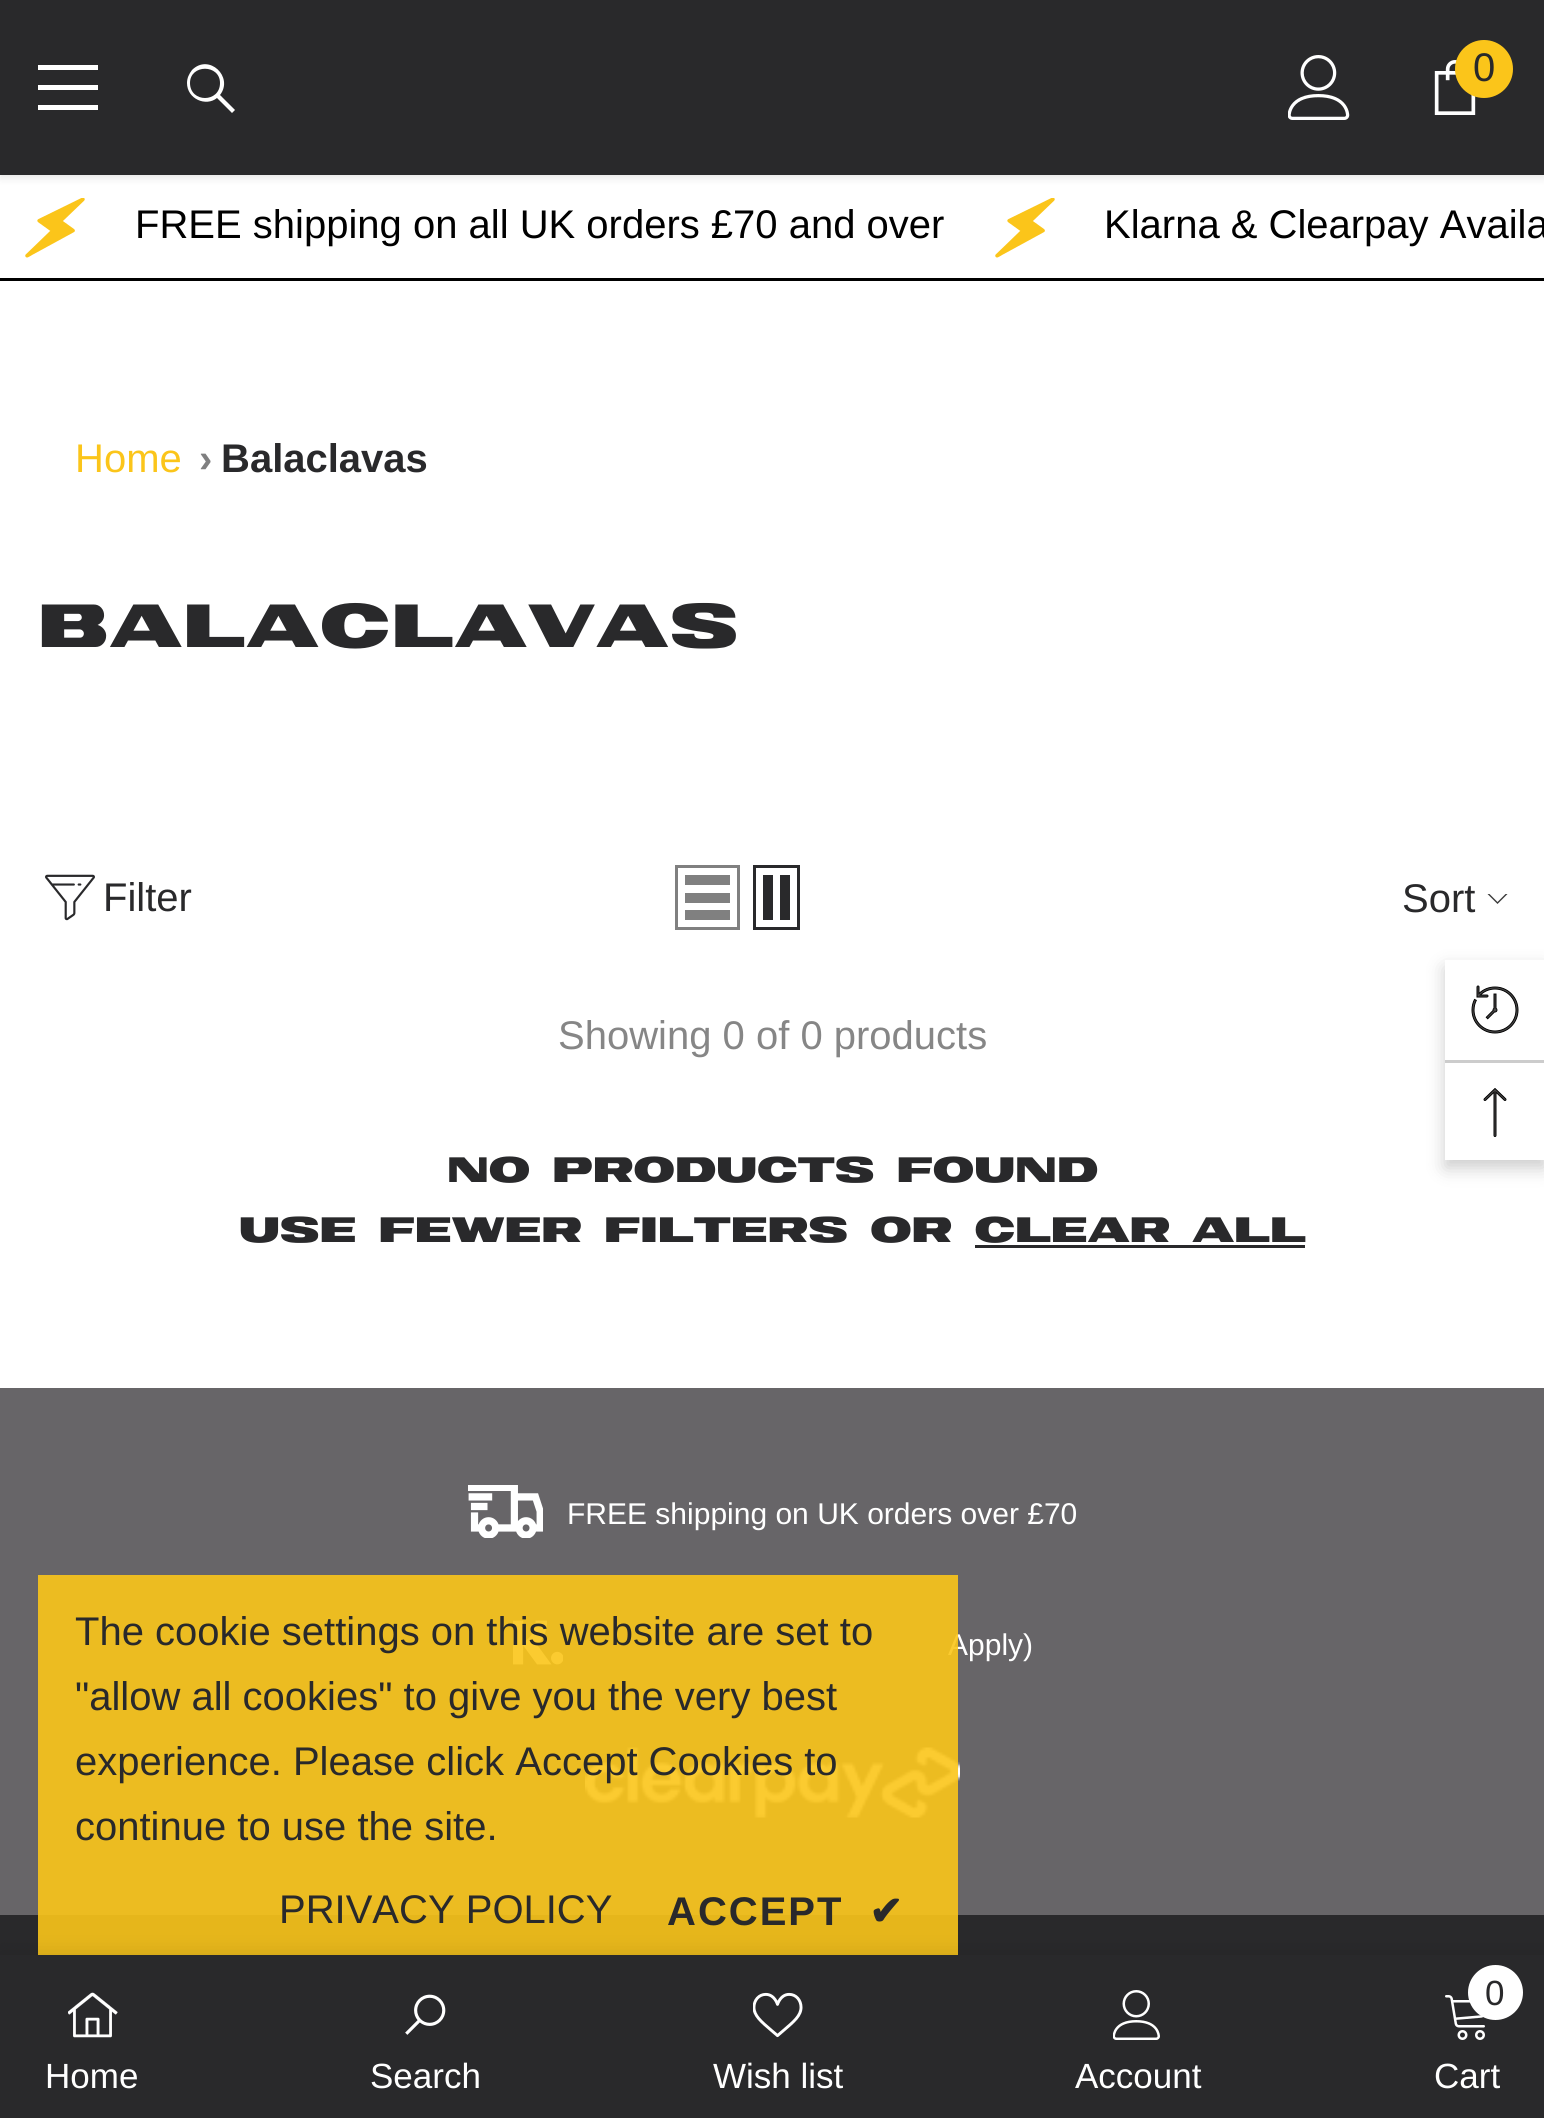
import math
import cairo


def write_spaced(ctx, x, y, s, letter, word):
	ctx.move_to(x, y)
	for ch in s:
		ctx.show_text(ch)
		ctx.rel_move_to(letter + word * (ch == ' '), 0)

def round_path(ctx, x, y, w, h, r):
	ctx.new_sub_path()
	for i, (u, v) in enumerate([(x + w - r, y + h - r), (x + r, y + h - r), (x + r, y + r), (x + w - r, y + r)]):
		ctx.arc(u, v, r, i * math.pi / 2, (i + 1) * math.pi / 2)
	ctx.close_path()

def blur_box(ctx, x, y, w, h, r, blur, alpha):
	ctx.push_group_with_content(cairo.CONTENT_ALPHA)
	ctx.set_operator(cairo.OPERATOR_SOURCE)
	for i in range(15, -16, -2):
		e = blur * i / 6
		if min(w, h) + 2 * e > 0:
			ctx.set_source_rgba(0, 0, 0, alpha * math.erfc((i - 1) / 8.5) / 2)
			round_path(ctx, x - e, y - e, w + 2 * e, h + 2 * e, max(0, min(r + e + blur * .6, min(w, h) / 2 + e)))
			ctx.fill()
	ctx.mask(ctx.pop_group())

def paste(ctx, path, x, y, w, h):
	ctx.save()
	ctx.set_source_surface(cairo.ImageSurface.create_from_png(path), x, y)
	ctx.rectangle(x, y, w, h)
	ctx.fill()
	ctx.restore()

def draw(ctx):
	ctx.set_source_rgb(1, 1, 1)
	ctx.paint()
	ctx.set_source_rgb(0, 0, 0)
	blur_box(ctx, 0, 3, 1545, 175, 0, 4, 0.1)
	ctx.set_source_rgb(0.161, 0.161, 0.169)
	ctx.rectangle(0, 0, 1544, 175)
	ctx.fill()
	ctx.set_source_rgb(1, 1, 1)
	ctx.rectangle(38, 85, 60, 5)
	ctx.rectangle(38, 65, 60, 5)
	ctx.rectangle(38, 105, 60, 5)
	ctx.fill()
	ctx.new_path()
	ctx.move_to(187, 83)
	ctx.curve_to(187, 99, 206, 107, 217, 98)
	ctx.line_to(232, 113)
	ctx.line_to(235, 110)
	ctx.line_to(220, 95)
	ctx.curve_to(234, 77, 209, 53, 192, 70)
	ctx.curve_to(189, 74, 187, 78, 187, 83)
	ctx.close_path()
	ctx.move_to(190, 83)
	ctx.curve_to(190, 64, 220, 64, 220, 83)
	ctx.curve_to(220, 103, 190, 103, 190, 83)
	ctx.close_path()
	ctx.fill()
	paste(ctx, 'media/1.png', 1288, 55, 62, 65)
	paste(ctx, 'media/2.png', 1434, 60, 42, 55)
	ctx.set_source_rgb(0.984, 0.773, 0.102)
	ctx.arc(1484, 69, 29, 0, 2 * math.pi)
	ctx.fill()
	ctx.select_font_face('Liberation Sans')
	ctx.set_font_size(40)
	ctx.set_source_rgb(0.161, 0.161, 0.169)
	ctx.move_to(1473, 81)
	ctx.show_text('0')
	ctx.set_source_rgb(0, 0, 0)
	ctx.rectangle(0, 278, 1544, 3)
	ctx.fill()
	paste(ctx, 'media/3.png', 25, 198, 60, 60)
	ctx.move_to(135, 238)
	ctx.show_text('FREE shipping on all UK orders £70 and over')
	paste(ctx, 'media/3.png', 995, 198, 60, 60)
	ctx.move_to(1104, 238)
	ctx.show_text('Klarna & Clearpay Availa')
	ctx.set_source_rgb(0.984, 0.773, 0.102)
	ctx.move_to(75, 472)
	ctx.show_text('Home')
	ctx.select_font_face('Liberation Sans', cairo.FONT_SLANT_NORMAL, cairo.FONT_WEIGHT_BOLD)
	ctx.set_source_rgb(0.498, 0.498, 0.502)
	ctx.move_to(199, 472)
	ctx.show_text('›')
	ctx.set_source_rgb(0.161, 0.161, 0.169)
	ctx.move_to(221, 472)
	ctx.show_text('Balaclavas')
	ctx.select_font_face('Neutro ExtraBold')
	ctx.set_font_size(77.5)
	write_spaced(ctx, 38, 647, 'BALACLAVAS', 1.5, 0)
	paste(ctx, 'media/4.png', 45, 874, 50, 47)
	ctx.select_font_face('Liberation Sans')
	ctx.set_font_size(40)
	ctx.move_to(103, 911)
	ctx.show_text('Filter')
	ctx.rectangle(676.5, 866.5, 62, 62)
	ctx.set_source_rgb(0.502, 0.502, 0.502)
	ctx.set_line_width(3)
	ctx.stroke()
	ctx.rectangle(685, 910, 45, 10)
	ctx.rectangle(685, 893, 45, 10)
	ctx.rectangle(685, 875, 45, 10)
	ctx.fill()
	ctx.rectangle(754.5, 866.5, 44, 62)
	ctx.set_source_rgb(0.161, 0.161, 0.169)
	ctx.stroke()
	ctx.rectangle(780, 875, 10, 45)
	ctx.fill()
	ctx.rectangle(763, 875, 10, 45)
	ctx.fill()
	ctx.move_to(1402, 912)
	ctx.show_text('Sort')
	ctx.set_source_rgb(0.235, 0.235, 0.235)
	ctx.new_path()
	ctx.move_to(1497.5, 902)
	ctx.line_to(1489.5, 894)
	ctx.line_to(1487.5, 894)
	ctx.line_to(1497.5, 904)
	ctx.line_to(1507.5, 894)
	ctx.line_to(1505.5, 894)
	ctx.close_path()
	ctx.fill()
	ctx.set_source_rgb(0.525, 0.525, 0.525)
	ctx.move_to(558, 1049)
	ctx.show_text('Showing 0 of 0 products')
	ctx.select_font_face('Neutro ExtraBold')
	ctx.set_font_size(45)
	ctx.set_source_rgb(0.161, 0.161, 0.169)
	ctx.move_to(447, 1182)
	ctx.show_text('NO PRODUCTS FOUND')
	ctx.move_to(239, 1242)
	ctx.show_text('USE FEWER FILTERS OR CLEAR ALL')
	ctx.rectangle(975, 1245, 330, 3)
	ctx.fill()
	ctx.set_source_rgb(0.404, 0.396, 0.408)
	ctx.rectangle(0, 1388, 1544, 527)
	ctx.fill()
	paste(ctx, 'media/5.png', 468, 1485, 75, 53)
	ctx.select_font_face('Liberation Sans')
	ctx.set_font_size(30)
	ctx.set_source_rgb(1, 1, 1)
	ctx.move_to(567, 1524)
	ctx.show_text('FREE shipping on UK orders over £70')
	paste(ctx, 'media/6.png', 513, 1620, 50, 45)
	ctx.move_to(948, 1655)
	ctx.show_text('Apply)')
	paste(ctx, 'media/7.png', 585, 1747, 375, 71)
	ctx.set_source_rgb(0.161, 0.161, 0.169)
	ctx.rectangle(0, 1915, 1544, 40)
	ctx.fill()
	ctx.set_source_rgba(0.984, 0.773, 0.102, 0.9)
	ctx.rectangle(38, 1575, 920, 380)
	ctx.fill()
	ctx.set_source_rgb(0, 0, 0)
	blur_box(ctx, 0, 1955, 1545, 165, 0, 11, 0.12)
	ctx.set_source_rgb(0.161, 0.161, 0.169)
	ctx.rectangle(0, 1955, 1544, 163)
	ctx.fill()
	paste(ctx, 'media/8.png', 68, 1992, 50, 46)
	ctx.set_font_size(35)
	ctx.set_source_rgb(1, 1, 1)
	ctx.move_to(45, 2088)
	ctx.show_text('Home')
	paste(ctx, 'media/9.png', 405, 1994, 41, 41)
	ctx.move_to(370, 2088)
	ctx.show_text('Search')
	paste(ctx, 'media/10.png', 753, 1992, 50, 46)
	ctx.move_to(713, 2088)
	ctx.show_text('Wish list')
	paste(ctx, 'media/11.png', 1113, 1990, 47, 50)
	ctx.move_to(1075, 2088)
	ctx.show_text('Account')
	paste(ctx, 'media/12.png', 1445, 1995, 40, 45)
	ctx.arc(1495.5, 1992.5, 27.5, 0, 2 * math.pi)
	ctx.fill()
	ctx.set_source_rgb(0.161, 0.161, 0.169)
	ctx.move_to(1485, 2005)
	ctx.show_text('0')
	ctx.set_source_rgb(1, 1, 1)
	ctx.move_to(1434, 2088)
	ctx.show_text('Cart')
	ctx.save()
	ctx.set_fill_rule(cairo.FILL_RULE_EVEN_ODD)
	ctx.new_path()
	ctx.move_to(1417, 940)
	ctx.line_to(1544, 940)
	ctx.line_to(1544, 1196)
	ctx.line_to(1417, 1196)
	ctx.close_path()
	ctx.move_to(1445, 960)
	ctx.line_to(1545, 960)
	ctx.line_to(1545, 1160)
	ctx.line_to(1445, 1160)
	ctx.close_path()
	ctx.clip()
	ctx.set_source_rgb(0, 0, 0)
	blur_box(ctx, 1445, 968, 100, 200, 0, 9, 0.2)
	ctx.restore()
	paste(ctx, 'media/13.png', 1471, 985, 48, 49)
	ctx.set_source_rgb(0.8, 0.8, 0.8)
	ctx.rectangle(1445, 1060, 99, 3)
	ctx.fill()
	paste(ctx, 'media/14.png', 1483, 1088, 24, 49)
	ctx.set_font_size(40)
	ctx.set_source_rgb(0.161, 0.161, 0.169)
	for x, y, s in [
		(75, 1645, 'The cookie settings on this website are set to'),
		(75, 1710, '"allow all cookies" to give you the very best'),
		(75, 1775, 'experience. Please click Accept Cookies to'),
		(75, 1840, 'continue to use the site.'),
		(279, 1923, 'PRIVACY POLICY'),
	]:
		ctx.move_to(x, y)
		ctx.show_text(s)
	ctx.select_font_face('Liberation Sans', cairo.FONT_SLANT_NORMAL, cairo.FONT_WEIGHT_BOLD)
	write_spaced(ctx, 667, 1925, 'ACCEPT', 2, 0)
	ctx.select_font_face('DejaVu Sans', cairo.FONT_SLANT_NORMAL, cairo.FONT_WEIGHT_BOLD)
	write_spaced(ctx, 869, 1925, '✔', 2, 0)


surface = cairo.ImageSurface(cairo.FORMAT_RGB24, 1544, 2118)
ctx = cairo.Context(surface)
options = cairo.FontOptions()
options.set_hint_metrics(cairo.HINT_METRICS_OFF)
options.set_hint_style(cairo.HINT_STYLE_NONE)
ctx.set_font_options(options)
ctx.set_miter_limit(4)
draw(ctx)
surface.write_to_png('image.png')
